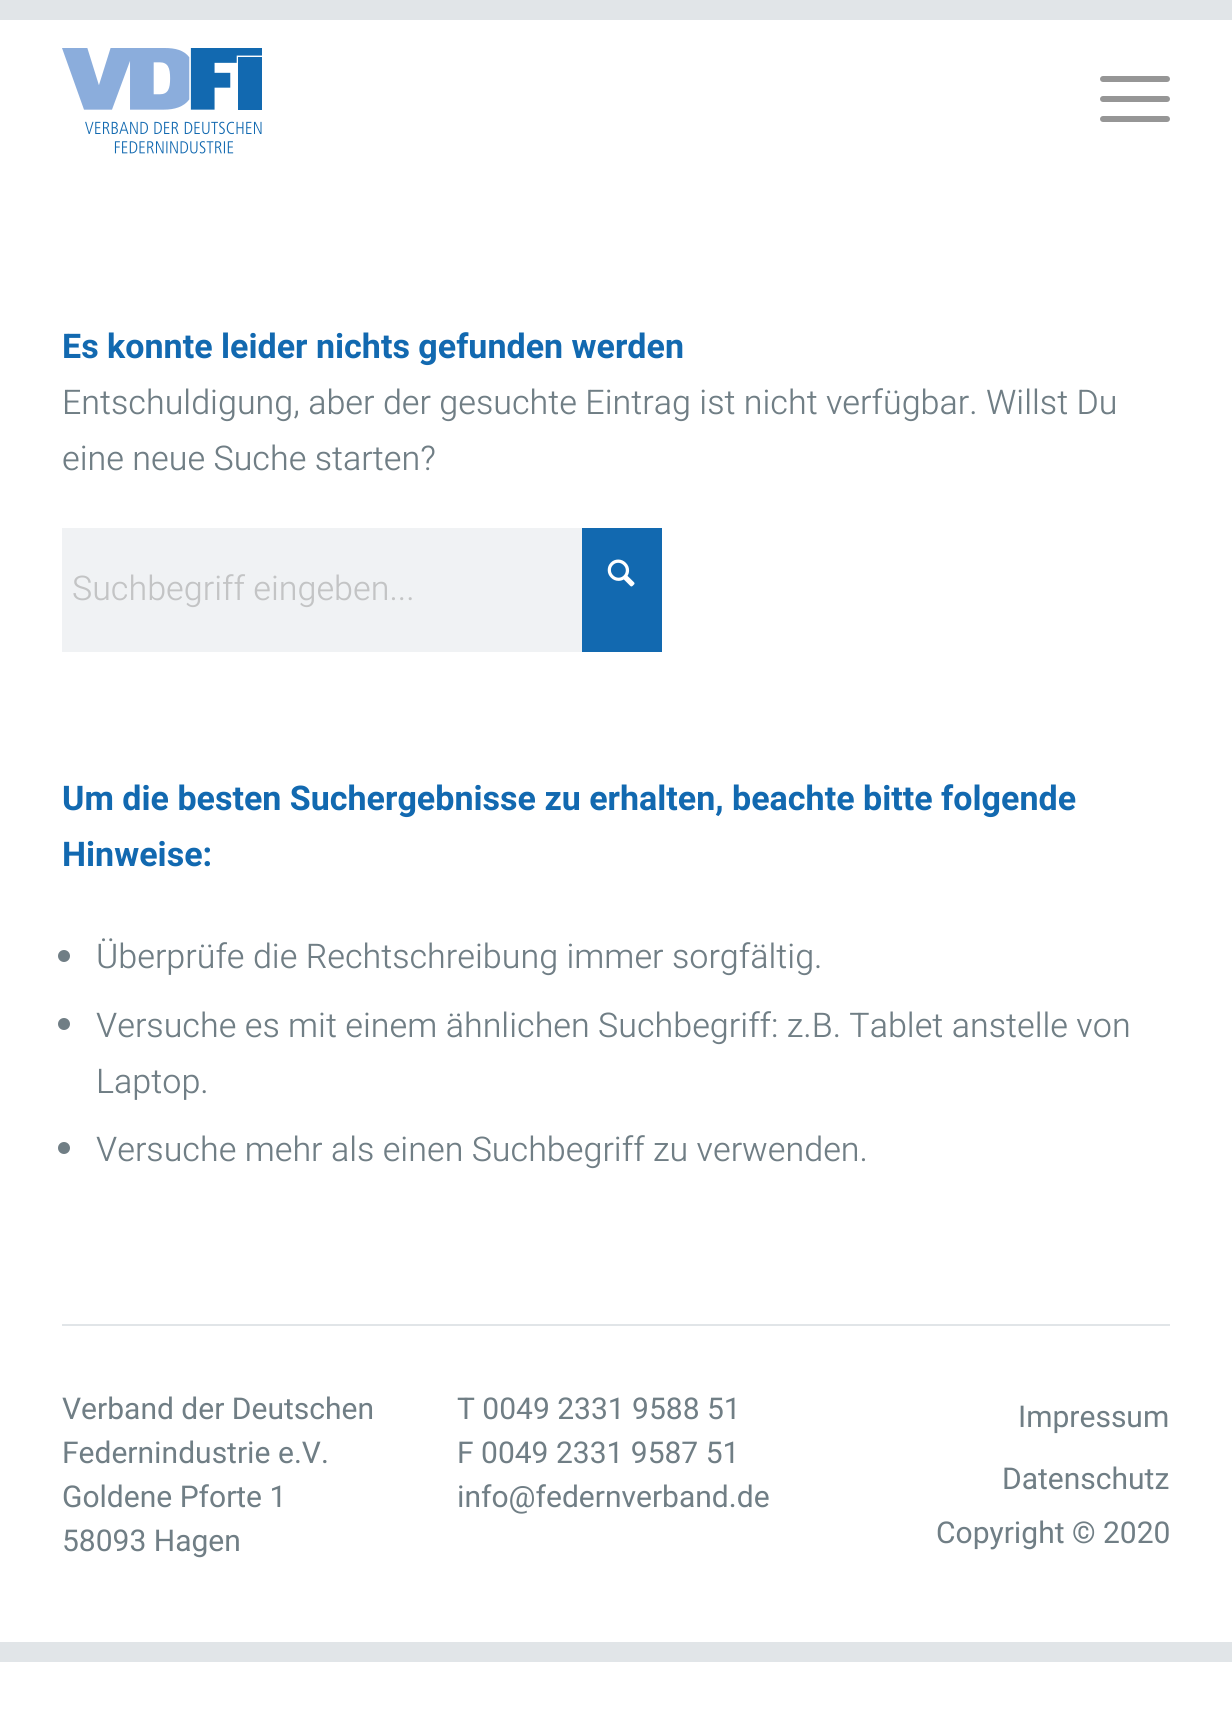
import math
import cairo


def round_path(ctx, x, y, w, h, r):
	ctx.new_sub_path()
	for i, (u, v) in enumerate([(x + w - r, y + h - r), (x + r, y + h - r), (x + r, y + r), (x + w - r, y + r)]):
		ctx.arc(u, v, r, i * math.pi / 2, (i + 1) * math.pi / 2)
	ctx.close_path()

def paste(ctx, path, x, y, w, h):
	ctx.save()
	ctx.set_source_surface(cairo.ImageSurface.create_from_png(path), x, y)
	ctx.rectangle(x, y, w, h)
	ctx.fill()
	ctx.restore()

def draw(ctx):
	ctx.set_source_rgb(1, 1, 1)
	ctx.paint()
	ctx.set_source_rgb(0.882, 0.898, 0.91)
	ctx.rectangle(0, 0, 1232, 20)
	ctx.fill()
	paste(ctx, 'media/1.png', 62, 48, 200, 106)
	ctx.set_source_rgb(0.588, 0.588, 0.588)
	round_path(ctx, 1100, 96, 70, 6, 3)
	ctx.fill()
	round_path(ctx, 1100, 76, 70, 6, 3)
	ctx.fill()
	round_path(ctx, 1100, 116, 70, 6, 3)
	ctx.fill()
	ctx.select_font_face('Heebo', cairo.FONT_SLANT_NORMAL, cairo.FONT_WEIGHT_BOLD)
	ctx.set_font_size(34)
	ctx.set_source_rgb(0.071, 0.412, 0.69)
	ctx.move_to(62, 358)
	ctx.show_text('Es konnte leider nichts gefunden werden')
	ctx.select_font_face('Heebo Light')
	ctx.set_source_rgb(0.439, 0.494, 0.522)
	ctx.move_to(62, 414)
	ctx.show_text('Entschuldigung, aber der gesuchte Eintrag ist nicht verfügbar. Willst Du')
	ctx.move_to(62, 470)
	ctx.show_text('eine neue Suche starten?')
	ctx.set_source_rgb(0.071, 0.412, 0.69)
	ctx.rectangle(582, 528, 80, 124)
	ctx.fill()
	ctx.set_source_rgb(0.941, 0.949, 0.957)
	ctx.rectangle(62, 528, 520, 124)
	ctx.fill()
	ctx.set_source_rgb(0.765, 0.769, 0.773)
	ctx.move_to(72, 600)
	ctx.show_text('Suchbegriff eingeben...')
	paste(ctx, 'media/2.png', 607, 559, 28, 28)
	ctx.select_font_face('Heebo', cairo.FONT_SLANT_NORMAL, cairo.FONT_WEIGHT_BOLD)
	ctx.set_source_rgb(0.071, 0.412, 0.69)
	ctx.move_to(62, 810)
	ctx.show_text('Um die besten Suchergebnisse zu erhalten, beachte bitte folgende')
	ctx.move_to(62, 866)
	ctx.show_text('Hinweise:')
	ctx.set_source_rgb(0.439, 0.494, 0.522)
	ctx.new_path()
	ctx.arc(64, 956, 6, 0, 2 * math.pi)
	ctx.fill()
	ctx.select_font_face('Heebo Light')
	ctx.move_to(96, 968)
	ctx.show_text('Überprüfe die Rechtschreibung immer sorgfältig.')
	ctx.new_path()
	ctx.arc(64, 1024, 6, 0, 2 * math.pi)
	ctx.fill()
	ctx.move_to(96, 1037)
	ctx.show_text('Versuche es mit einem ähnlichen Suchbegriff: z.B. Tablet anstelle von')
	ctx.move_to(96, 1093)
	ctx.show_text('Laptop.')
	ctx.new_path()
	ctx.arc(64, 1148, 6, 0, 2 * math.pi)
	ctx.fill()
	ctx.move_to(96, 1161)
	ctx.show_text('Versuche mehr als einen Suchbegriff zu verwenden.')
	ctx.set_source_rgb(0.882, 0.898, 0.91)
	ctx.rectangle(0, 1642, 1232, 20)
	ctx.fill()
	ctx.rectangle(62, 1324, 1108, 2)
	ctx.fill()
	ctx.select_font_face('Heebo')
	ctx.set_font_size(30)
	ctx.set_source_rgb(0.439, 0.494, 0.522)
	for x, y, s in [
		(62, 1419, 'Verband der Deutschen'),
		(62, 1463, 'Federnindustrie e.V.'),
		(62, 1507, 'Goldene Pforte 1'),
		(62, 1551, '58093 Hagen'),
		(457, 1419, 'T 0049 2331 9588 51'),
		(457, 1463, 'F 0049 2331 9587 51'),
		(457, 1507, 'info@federnverband.de'),
		(1018, 1427, 'Impressum'),
		(1002, 1489, 'Datenschutz'),
		(936, 1543, 'Copyright © 2020'),
	]:
		ctx.move_to(x, y)
		ctx.show_text(s)


surface = cairo.ImageSurface(cairo.FORMAT_RGB24, 1232, 1736)
ctx = cairo.Context(surface)
options = cairo.FontOptions()
options.set_hint_metrics(cairo.HINT_METRICS_OFF)
options.set_hint_style(cairo.HINT_STYLE_NONE)
ctx.set_font_options(options)
ctx.set_miter_limit(4)
draw(ctx)
surface.write_to_png('image.png')
